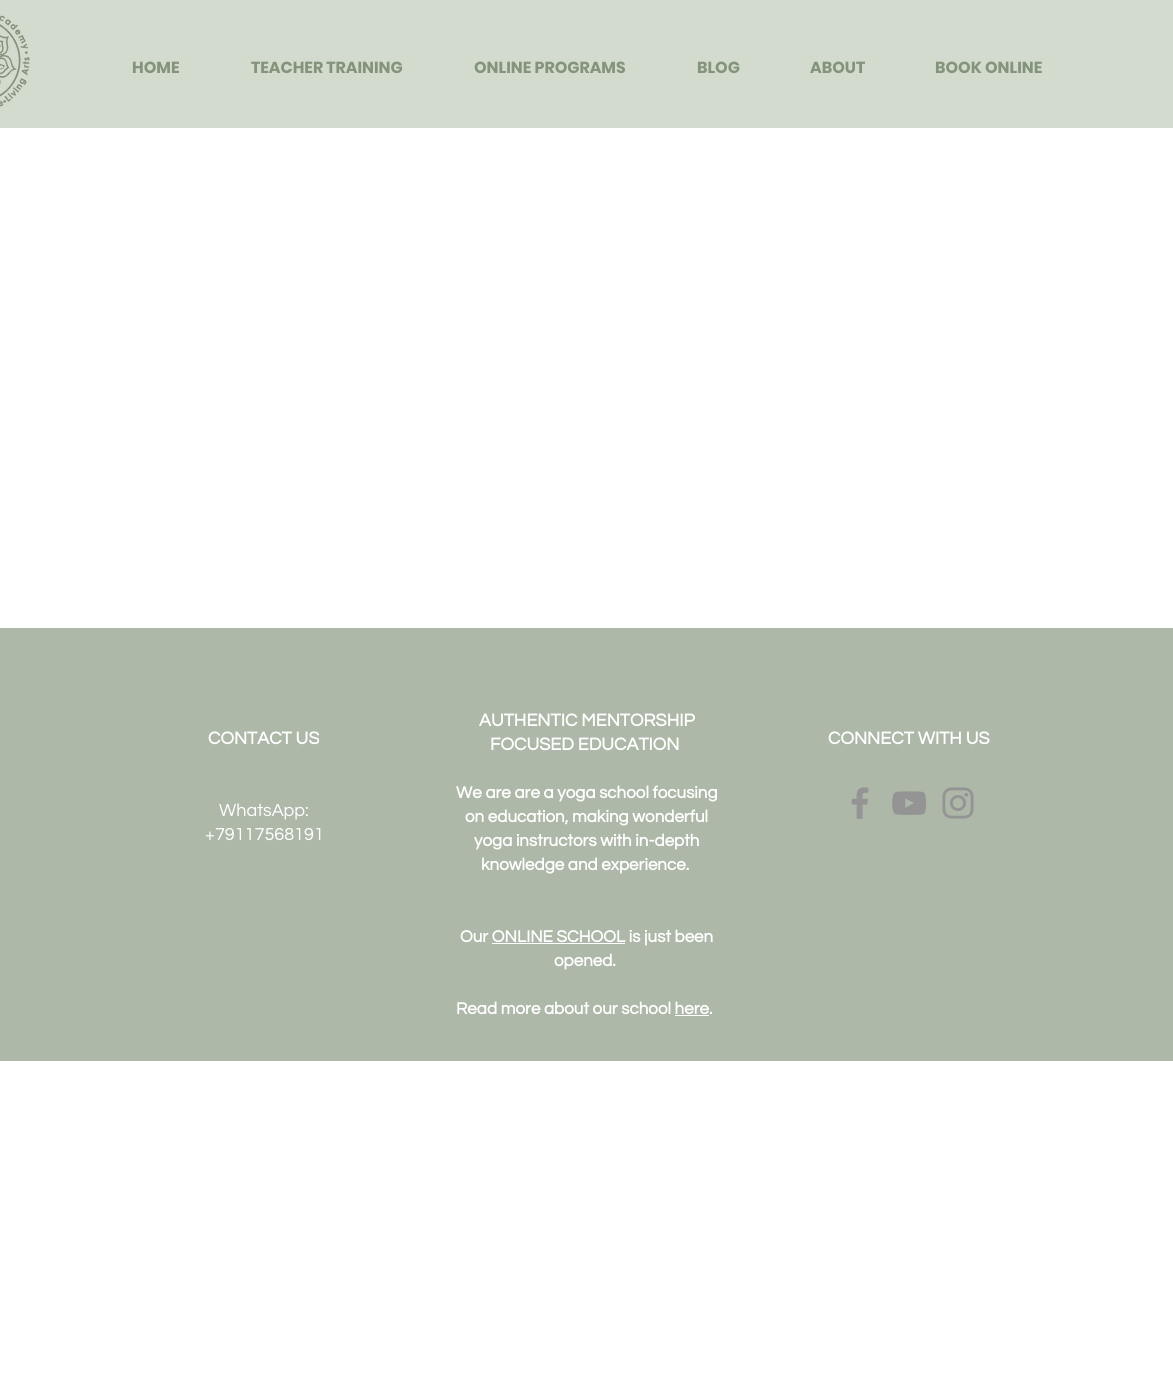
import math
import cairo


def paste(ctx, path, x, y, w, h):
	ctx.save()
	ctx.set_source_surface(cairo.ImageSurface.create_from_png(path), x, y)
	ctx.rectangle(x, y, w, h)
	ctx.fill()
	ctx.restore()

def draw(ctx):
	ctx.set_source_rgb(1, 1, 1)
	ctx.paint()
	ctx.set_source_rgb(0.827, 0.859, 0.812)
	ctx.rectangle(0, 0, 1173, 128)
	ctx.fill()
	paste(ctx, 'media/1.png', 0, 15, 30, 92)
	ctx.select_font_face('Poppins', cairo.FONT_SLANT_NORMAL, cairo.FONT_WEIGHT_BOLD)
	ctx.set_font_size(16)
	ctx.set_source_rgb(0.518, 0.58, 0.482)
	for x, y, s in [
		(132, 73, 'HOME'),
		(251, 73, 'TEACHER TRAINING'),
		(474, 73, 'ONLINE PROGRAMS'),
		(697, 73, 'BLOG'),
		(810, 73, 'ABOUT'),
		(935, 73, 'BOOK ONLINE'),
	]:
		ctx.move_to(x, y)
		ctx.show_text(s)
	ctx.set_source_rgb(0.682, 0.722, 0.659)
	ctx.rectangle(0, 628, 1173, 433)
	ctx.fill()
	ctx.select_font_face('Questrial', cairo.FONT_SLANT_NORMAL, cairo.FONT_WEIGHT_BOLD)
	ctx.set_font_size(18)
	ctx.set_source_rgb(1, 1, 1)
	ctx.move_to(208, 744)
	ctx.show_text('CONTACT US')
	ctx.select_font_face('Questrial')
	ctx.move_to(219, 816)
	ctx.show_text('WhatsApp:')
	ctx.move_to(205, 840)
	ctx.show_text('+79117568191')
	ctx.select_font_face('Questrial', cairo.FONT_SLANT_NORMAL, cairo.FONT_WEIGHT_BOLD)
	ctx.move_to(479, 726)
	ctx.show_text('AUTHENTIC MENTORSHIP')
	ctx.move_to(490, 750)
	ctx.show_text('FOCUSED EDUCATION')
	ctx.set_font_size(17)
	for x, y, s in [
		(456, 798, 'We are are a yoga school focusing'),
		(465, 822, 'on education, making wonderful'),
		(474, 846, 'yoga instructors with in-depth'),
		(481, 870, 'knowledge and experience.'),
		(460, 942, 'Our ONLINE SCHOOL is just been'),
	]:
		ctx.move_to(x, y)
		ctx.show_text(s)
	ctx.rectangle(492, 943, 133, 1)
	ctx.fill()
	ctx.move_to(554, 966)
	ctx.show_text('opened.')
	ctx.move_to(456, 1014)
	ctx.show_text('Read more about our school here.')
	ctx.rectangle(675, 1015, 34, 1)
	ctx.fill()
	ctx.set_font_size(18)
	ctx.move_to(828, 744)
	ctx.show_text('CONNECT WITH US')
	paste(ctx, 'media/2.png', 851, 787, 18, 32)
	paste(ctx, 'media/3.png', 892, 791, 35, 24)
	paste(ctx, 'media/4.png', 942, 787, 32, 32)


surface = cairo.ImageSurface(cairo.FORMAT_RGB24, 1173, 1385)
ctx = cairo.Context(surface)
options = cairo.FontOptions()
options.set_hint_metrics(cairo.HINT_METRICS_OFF)
options.set_hint_style(cairo.HINT_STYLE_NONE)
ctx.set_font_options(options)
ctx.set_miter_limit(4)
draw(ctx)
surface.write_to_png('image.png')
